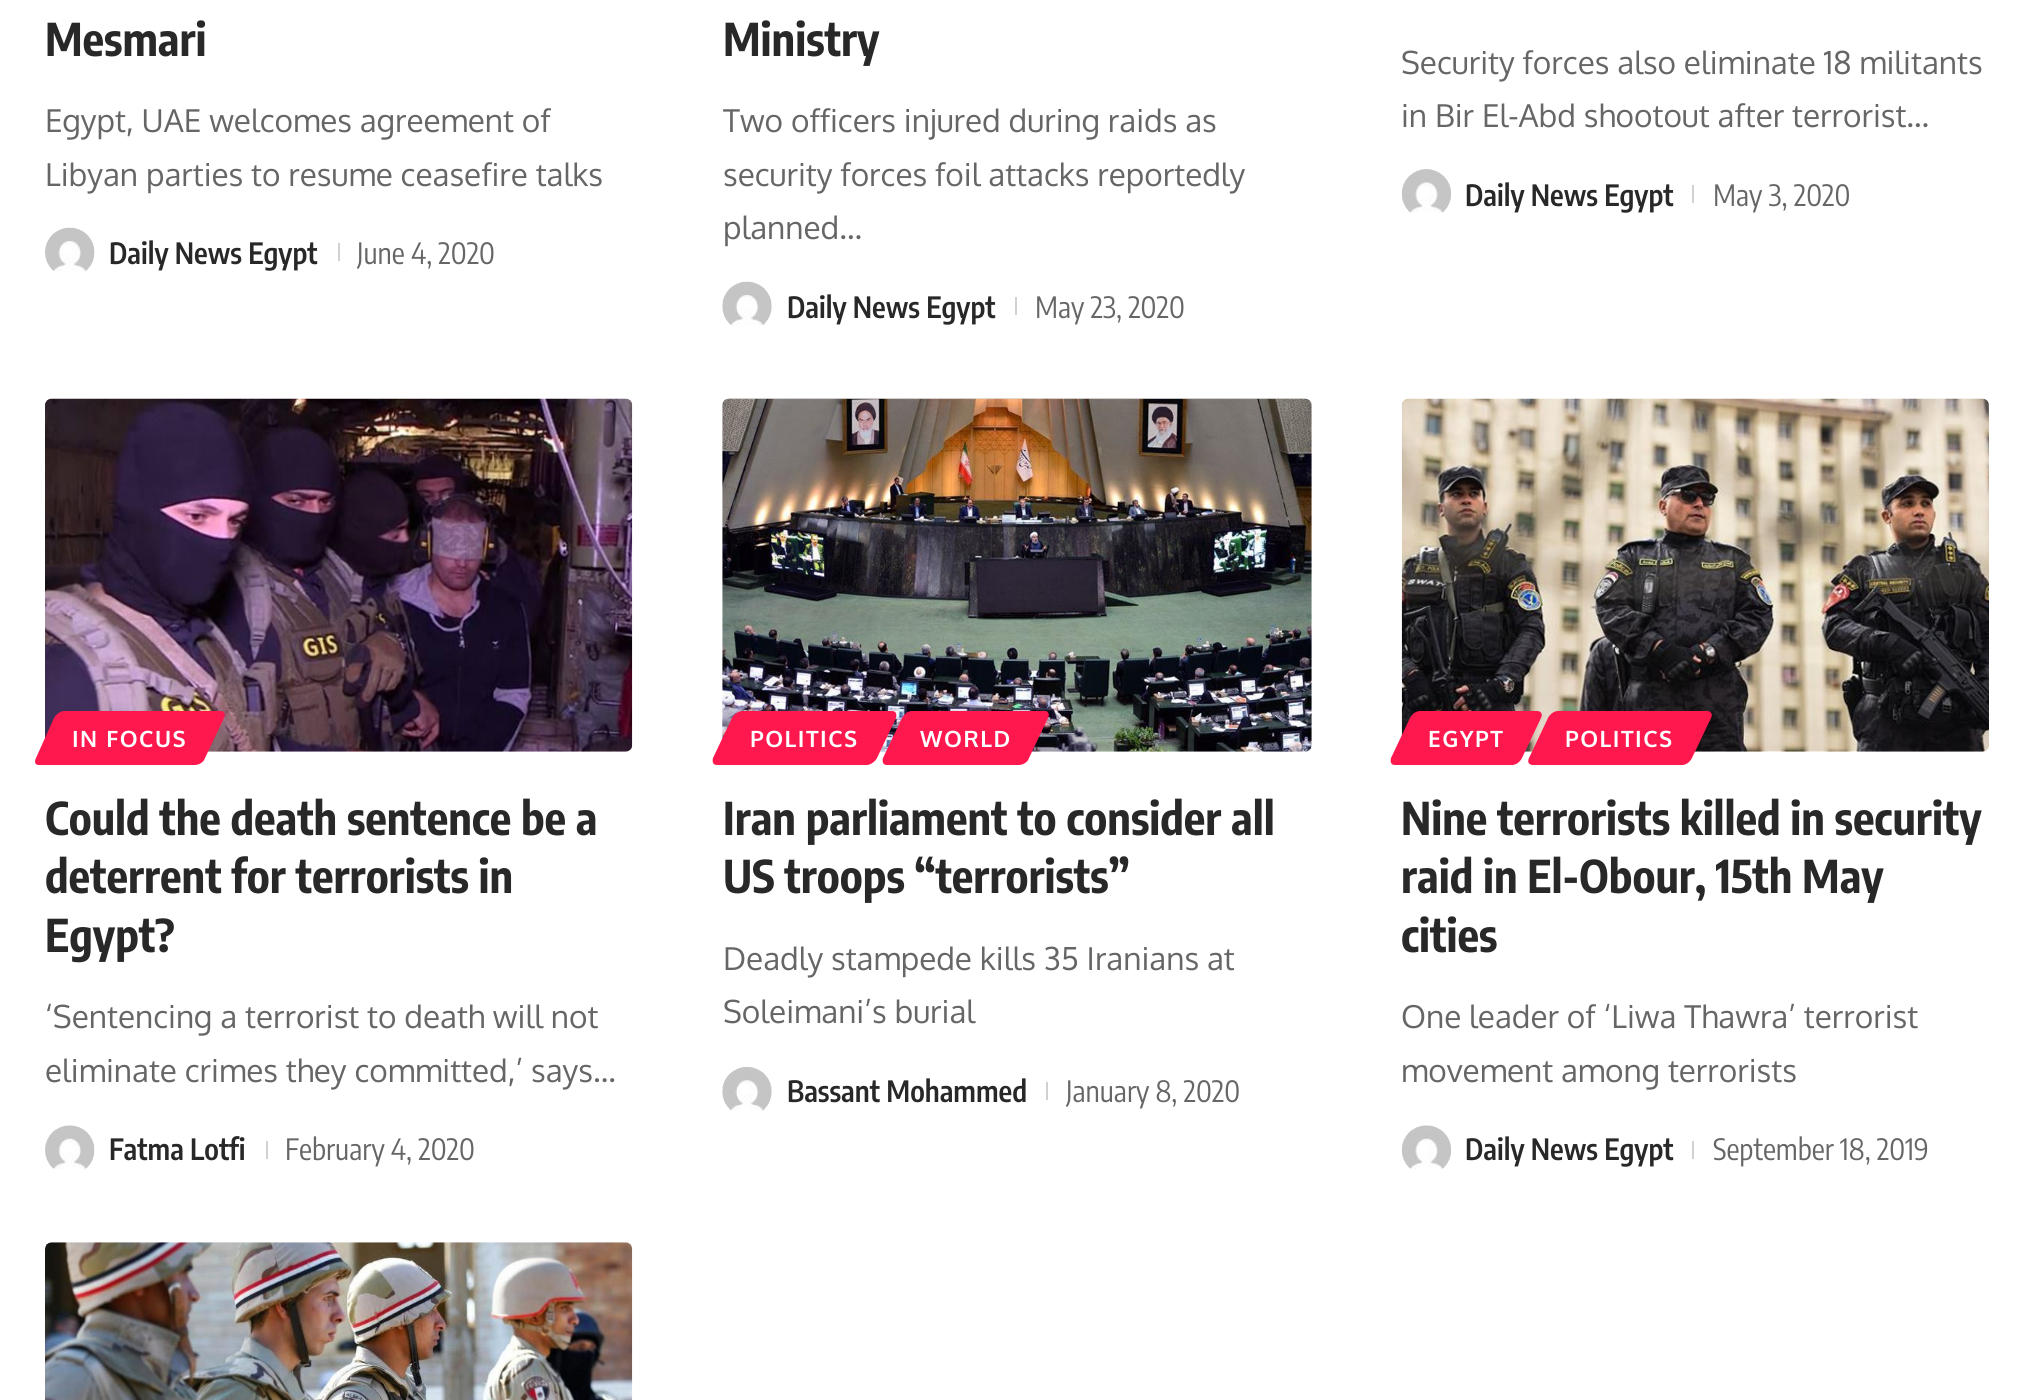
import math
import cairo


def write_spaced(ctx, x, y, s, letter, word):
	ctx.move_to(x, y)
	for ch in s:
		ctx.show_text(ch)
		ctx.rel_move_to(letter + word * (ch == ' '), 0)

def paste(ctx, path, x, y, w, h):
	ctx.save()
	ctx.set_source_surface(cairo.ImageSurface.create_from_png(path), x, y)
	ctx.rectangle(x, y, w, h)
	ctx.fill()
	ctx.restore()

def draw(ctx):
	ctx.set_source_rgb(1, 1, 1)
	ctx.paint()
	ctx.select_font_face('Encode Sans Condensed', cairo.FONT_SLANT_NORMAL, cairo.FONT_WEIGHT_BOLD)
	ctx.set_font_size(45)
	ctx.set_source_rgb(0.157, 0.157, 0.157)
	ctx.move_to(45, 56)
	ctx.show_text('Mesmari')
	ctx.select_font_face('Oxygen')
	ctx.set_font_size(31.5)
	ctx.set_source_rgb(0.4, 0.4, 0.4)
	ctx.move_to(45, 132)
	ctx.show_text('Egypt, UAE welcomes agreement of')
	ctx.move_to(45, 186)
	ctx.show_text('Libyan parties to resume ceasefire talks')
	paste(ctx, 'media/1.png', 45, 227, 50, 45)
	ctx.select_font_face('Encode Sans Condensed SemiBold')
	ctx.set_font_size(29.25)
	ctx.set_source_rgb(0.157, 0.157, 0.157)
	ctx.move_to(109, 264)
	ctx.show_text('Daily News Egypt')
	ctx.set_source_rgb(0.82, 0.82, 0.82)
	ctx.rectangle(338, 243, 2, 18)
	ctx.fill()
	ctx.select_font_face('Encode Sans Condensed')
	ctx.set_source_rgb(0.4, 0.4, 0.4)
	ctx.move_to(357, 264)
	ctx.show_text('June 4, 2020')
	ctx.select_font_face('Encode Sans Condensed', cairo.FONT_SLANT_NORMAL, cairo.FONT_WEIGHT_BOLD)
	ctx.set_font_size(45)
	ctx.set_source_rgb(0.157, 0.157, 0.157)
	ctx.move_to(723, 56)
	ctx.show_text('Ministry')
	ctx.select_font_face('Oxygen')
	ctx.set_font_size(31.5)
	ctx.set_source_rgb(0.4, 0.4, 0.4)
	for x, y, s in [
		(723, 132, 'Two officers injured during raids as'),
		(723, 186, 'security forces foil attacks reportedly'),
		(723, 239, 'planned…'),
	]:
		ctx.move_to(x, y)
		ctx.show_text(s)
	paste(ctx, 'media/2.png', 722, 281, 50, 45)
	ctx.select_font_face('Encode Sans Condensed SemiBold')
	ctx.set_font_size(29.25)
	ctx.set_source_rgb(0.157, 0.157, 0.157)
	ctx.move_to(787, 318)
	ctx.show_text('Daily News Egypt')
	ctx.set_source_rgb(0.82, 0.82, 0.82)
	ctx.rectangle(1015, 297, 2, 18)
	ctx.fill()
	ctx.select_font_face('Encode Sans Condensed')
	ctx.set_source_rgb(0.4, 0.4, 0.4)
	ctx.move_to(1035, 318)
	ctx.show_text('May 23, 2020')
	ctx.select_font_face('Oxygen')
	ctx.set_font_size(31.5)
	ctx.move_to(1401, 74)
	ctx.show_text('Security forces also eliminate 18 militants')
	ctx.move_to(1401, 127)
	ctx.show_text('in Bir El-Abd shootout after terrorist…')
	paste(ctx, 'media/3.png', 1402, 169, 49, 44)
	ctx.select_font_face('Encode Sans Condensed SemiBold')
	ctx.set_font_size(29.25)
	ctx.set_source_rgb(0.157, 0.157, 0.157)
	ctx.move_to(1465, 206)
	ctx.show_text('Daily News Egypt')
	ctx.set_source_rgb(0.82, 0.82, 0.82)
	ctx.rectangle(1692, 185, 2, 18)
	ctx.fill()
	ctx.select_font_face('Encode Sans Condensed')
	ctx.set_source_rgb(0.4, 0.4, 0.4)
	ctx.move_to(1713, 206)
	ctx.show_text('May 3, 2020')
	paste(ctx, 'media/4.png', 45, 398, 588, 354)
	ctx.set_source_rgb(1, 0.094, 0.306)
	ctx.new_path()
	ctx.move_to(64, 711)
	ctx.line_to(221, 711)
	ctx.curve_to(224, 711, 226, 714, 224, 718)
	ctx.line_to(205, 758)
	ctx.curve_to(204, 762, 199, 765, 195, 765)
	ctx.line_to(39, 765)
	ctx.curve_to(35, 765, 34, 762, 36, 758)
	ctx.line_to(54, 718)
	ctx.curve_to(56, 714, 61, 711, 64, 711)
	ctx.close_path()
	ctx.fill()
	ctx.select_font_face('Oxygen', cairo.FONT_SLANT_NORMAL, cairo.FONT_WEIGHT_BOLD)
	ctx.set_font_size(22.5)
	ctx.set_source_rgb(1, 1, 1)
	write_spaced(ctx, 72, 747, 'IN FOCUS', 1.5, 0)
	ctx.select_font_face('Encode Sans Condensed', cairo.FONT_SLANT_NORMAL, cairo.FONT_WEIGHT_BOLD)
	ctx.set_font_size(45)
	ctx.set_source_rgb(0.157, 0.157, 0.157)
	for x, y, s in [
		(45, 835, 'Could the death sentence be a'),
		(45, 893, 'deterrent for terrorists in'),
		(45, 952, 'Egypt?'),
	]:
		ctx.move_to(x, y)
		ctx.show_text(s)
	ctx.select_font_face('Oxygen')
	ctx.set_font_size(31.5)
	ctx.set_source_rgb(0.4, 0.4, 0.4)
	ctx.move_to(45, 1028)
	ctx.show_text('‘Sentencing a terrorist to death will not')
	ctx.move_to(45, 1082)
	ctx.show_text('eliminate crimes they committed,’ says…')
	paste(ctx, 'media/5.png', 45, 1125, 50, 44)
	ctx.select_font_face('Encode Sans Condensed SemiBold')
	ctx.set_font_size(29.25)
	ctx.set_source_rgb(0.157, 0.157, 0.157)
	ctx.move_to(109, 1160)
	ctx.show_text('Fatma Lotfi')
	ctx.set_source_rgb(0.82, 0.82, 0.82)
	ctx.rectangle(266, 1141, 2, 18)
	ctx.fill()
	ctx.select_font_face('Encode Sans Condensed')
	ctx.set_source_rgb(0.4, 0.4, 0.4)
	ctx.move_to(285, 1160)
	ctx.show_text('February 4, 2020')
	paste(ctx, 'media/6.png', 722, 398, 590, 354)
	ctx.set_source_rgb(1, 0.094, 0.306)
	ctx.new_path()
	ctx.move_to(742, 711)
	ctx.line_to(892, 711)
	ctx.curve_to(896, 711, 897, 714, 896, 718)
	ctx.line_to(877, 758)
	ctx.curve_to(875, 762, 870, 765, 867, 765)
	ctx.line_to(717, 765)
	ctx.curve_to(713, 765, 712, 762, 713, 758)
	ctx.line_to(732, 718)
	ctx.curve_to(734, 714, 739, 711, 742, 711)
	ctx.close_path()
	ctx.fill()
	ctx.select_font_face('Oxygen', cairo.FONT_SLANT_NORMAL, cairo.FONT_WEIGHT_BOLD)
	ctx.set_font_size(22.5)
	ctx.set_source_rgb(1, 1, 1)
	write_spaced(ctx, 750, 747, 'POLITICS', 1.5, 0)
	ctx.set_source_rgb(1, 0.094, 0.306)
	ctx.new_path()
	ctx.move_to(912, 711)
	ctx.line_to(1045, 711)
	ctx.curve_to(1048, 711, 1050, 714, 1048, 718)
	ctx.line_to(1029, 758)
	ctx.curve_to(1028, 762, 1023, 765, 1019, 765)
	ctx.line_to(887, 765)
	ctx.curve_to(883, 765, 882, 762, 883, 758)
	ctx.line_to(902, 718)
	ctx.curve_to(904, 714, 908, 711, 912, 711)
	ctx.close_path()
	ctx.fill()
	ctx.set_source_rgb(1, 1, 1)
	write_spaced(ctx, 920, 747, 'WORLD', 1.5, 0)
	ctx.select_font_face('Encode Sans Condensed', cairo.FONT_SLANT_NORMAL, cairo.FONT_WEIGHT_BOLD)
	ctx.set_font_size(45)
	ctx.set_source_rgb(0.157, 0.157, 0.157)
	ctx.move_to(723, 835)
	ctx.show_text('Iran parliament to consider all')
	ctx.move_to(723, 893)
	ctx.show_text('US troops “terrorists”')
	ctx.select_font_face('Oxygen')
	ctx.set_font_size(31.5)
	ctx.set_source_rgb(0.4, 0.4, 0.4)
	ctx.move_to(723, 970)
	ctx.show_text('Deadly stampede kills 35 Iranians at')
	ctx.move_to(723, 1023)
	ctx.show_text('Soleimani’s burial')
	paste(ctx, 'media/7.png', 722, 1067, 50, 44)
	ctx.select_font_face('Encode Sans Condensed SemiBold')
	ctx.set_font_size(29.25)
	ctx.set_source_rgb(0.157, 0.157, 0.157)
	ctx.move_to(787, 1102)
	ctx.show_text('Bassant Mohammed')
	ctx.set_source_rgb(0.82, 0.82, 0.82)
	ctx.rectangle(1046, 1082, 2, 18)
	ctx.fill()
	ctx.select_font_face('Encode Sans Condensed')
	ctx.set_source_rgb(0.4, 0.4, 0.4)
	ctx.move_to(1066, 1102)
	ctx.show_text('January 8, 2020')
	paste(ctx, 'media/8.png', 1401, 398, 588, 354)
	ctx.set_source_rgb(1, 0.094, 0.306)
	ctx.new_path()
	ctx.move_to(1420, 711)
	ctx.line_to(1537, 711)
	ctx.curve_to(1541, 711, 1543, 714, 1541, 718)
	ctx.line_to(1522, 758)
	ctx.curve_to(1520, 762, 1516, 765, 1512, 765)
	ctx.line_to(1395, 765)
	ctx.curve_to(1391, 765, 1390, 762, 1391, 758)
	ctx.line_to(1410, 718)
	ctx.curve_to(1412, 714, 1416, 711, 1420, 711)
	ctx.close_path()
	ctx.fill()
	ctx.select_font_face('Oxygen', cairo.FONT_SLANT_NORMAL, cairo.FONT_WEIGHT_BOLD)
	ctx.set_font_size(22.5)
	ctx.set_source_rgb(1, 1, 1)
	write_spaced(ctx, 1428, 747, 'EGYPT', 1.5, 0)
	ctx.set_source_rgb(1, 0.094, 0.306)
	ctx.new_path()
	ctx.move_to(1558, 711)
	ctx.line_to(1707, 711)
	ctx.curve_to(1711, 711, 1713, 714, 1711, 718)
	ctx.line_to(1692, 758)
	ctx.curve_to(1690, 762, 1686, 765, 1682, 765)
	ctx.line_to(1533, 765)
	ctx.curve_to(1529, 765, 1527, 762, 1529, 758)
	ctx.line_to(1548, 718)
	ctx.curve_to(1550, 714, 1554, 711, 1558, 711)
	ctx.close_path()
	ctx.fill()
	ctx.set_source_rgb(1, 1, 1)
	write_spaced(ctx, 1565, 747, 'POLITICS', 1.5, 0)
	ctx.select_font_face('Encode Sans Condensed', cairo.FONT_SLANT_NORMAL, cairo.FONT_WEIGHT_BOLD)
	ctx.set_font_size(45)
	ctx.set_source_rgb(0.157, 0.157, 0.157)
	for x, y, s in [
		(1401, 835, 'Nine terrorists killed in security'),
		(1401, 893, 'raid in El-Obour, 15th May'),
		(1401, 952, 'cities'),
	]:
		ctx.move_to(x, y)
		ctx.show_text(s)
	ctx.select_font_face('Oxygen')
	ctx.set_font_size(31.5)
	ctx.set_source_rgb(0.4, 0.4, 0.4)
	ctx.move_to(1401, 1028)
	ctx.show_text('One leader of ‘Liwa Thawra’ terrorist')
	ctx.move_to(1401, 1082)
	ctx.show_text('movement among terrorists')
	paste(ctx, 'media/9.png', 1402, 1125, 49, 44)
	ctx.select_font_face('Encode Sans Condensed SemiBold')
	ctx.set_font_size(29.25)
	ctx.set_source_rgb(0.157, 0.157, 0.157)
	ctx.move_to(1465, 1160)
	ctx.show_text('Daily News Egypt')
	ctx.set_source_rgb(0.82, 0.82, 0.82)
	ctx.rectangle(1692, 1141, 2, 18)
	ctx.fill()
	ctx.select_font_face('Encode Sans Condensed')
	ctx.set_source_rgb(0.4, 0.4, 0.4)
	ctx.move_to(1713, 1160)
	ctx.show_text('September 18, 2019')
	paste(ctx, 'media/10.png', 45, 1242, 588, 158)


surface = cairo.ImageSurface(cairo.FORMAT_RGB24, 2032, 1400)
ctx = cairo.Context(surface)
options = cairo.FontOptions()
options.set_hint_metrics(cairo.HINT_METRICS_OFF)
options.set_hint_style(cairo.HINT_STYLE_NONE)
ctx.set_font_options(options)
ctx.set_miter_limit(4)
draw(ctx)
surface.write_to_png('image.png')
